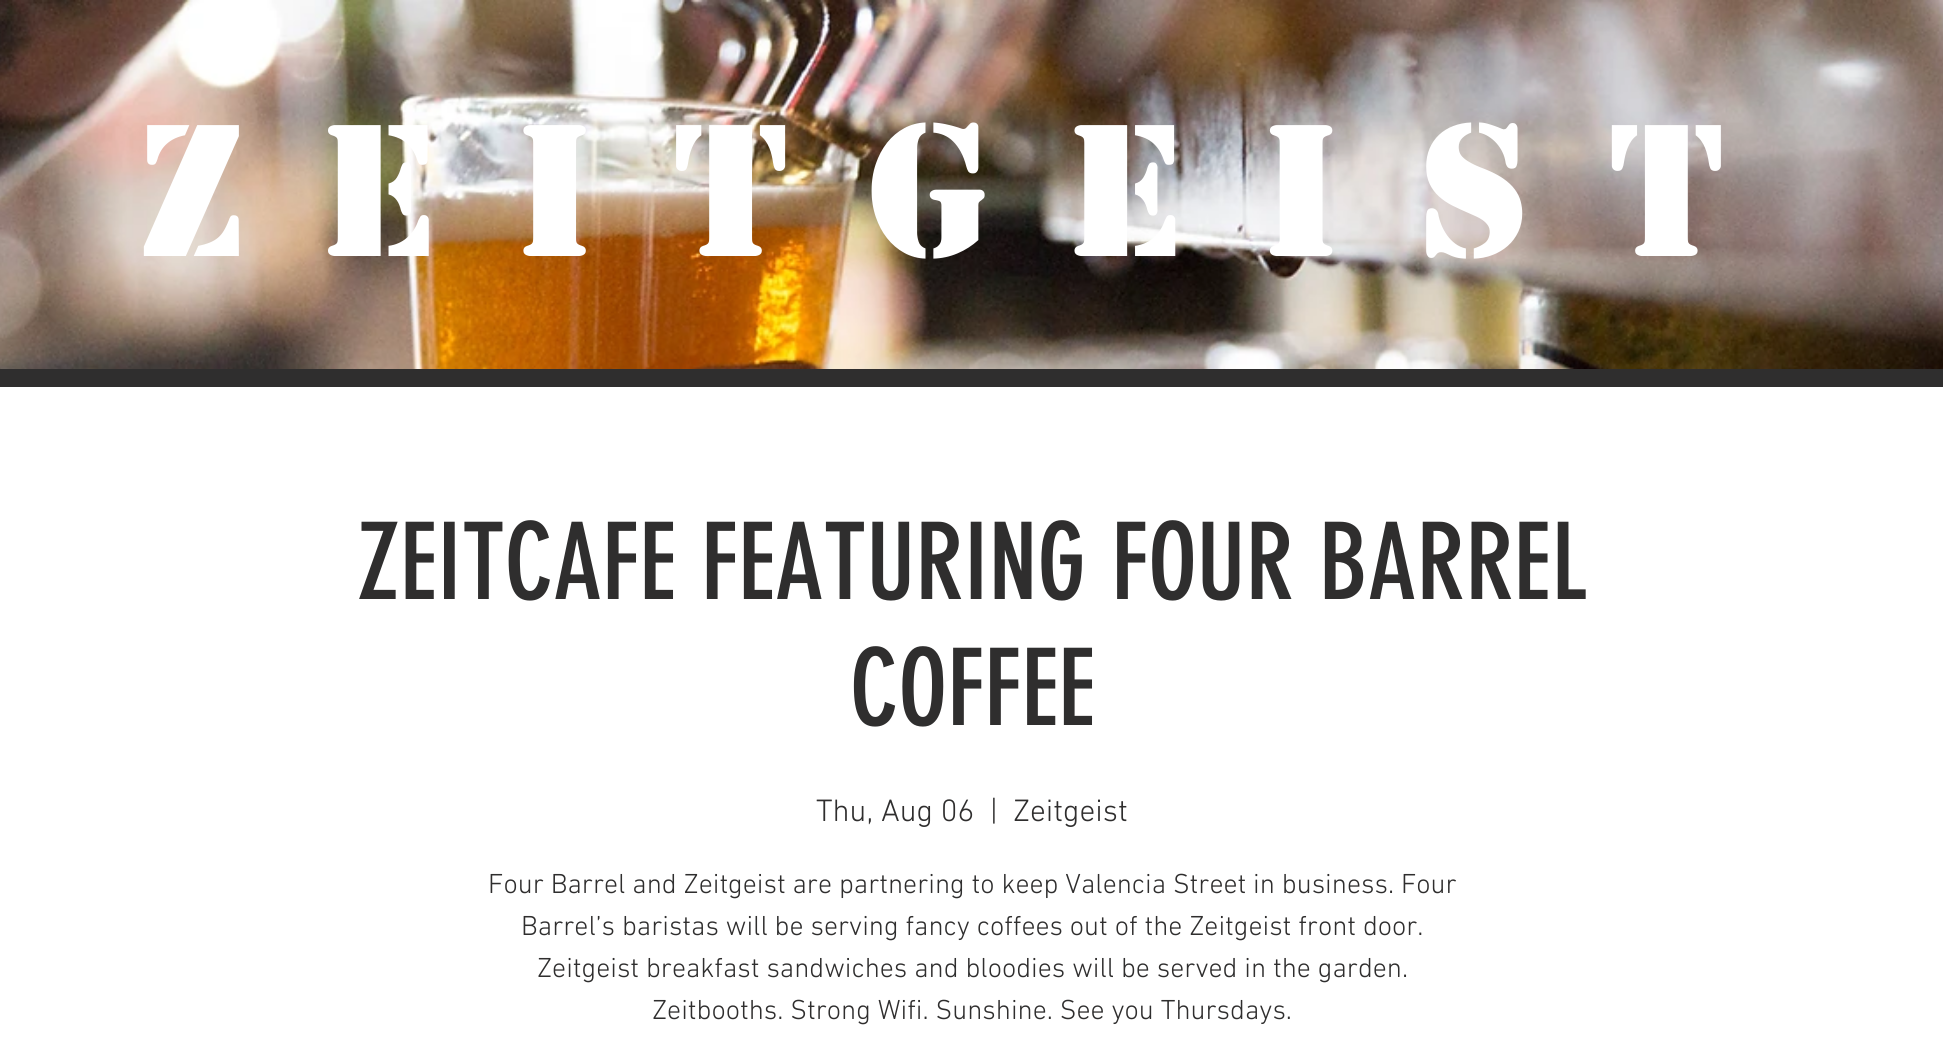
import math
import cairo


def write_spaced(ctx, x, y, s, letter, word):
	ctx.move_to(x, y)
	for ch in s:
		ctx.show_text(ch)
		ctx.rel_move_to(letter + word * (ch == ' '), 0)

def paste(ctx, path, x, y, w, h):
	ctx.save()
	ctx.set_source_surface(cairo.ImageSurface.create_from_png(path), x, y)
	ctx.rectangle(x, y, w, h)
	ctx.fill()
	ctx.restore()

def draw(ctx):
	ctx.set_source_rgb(0.184, 0.18, 0.18)
	ctx.paint()
	paste(ctx, 'media/1.png', 0, 0, 1943, 369)
	ctx.select_font_face('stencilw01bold', cairo.FONT_SLANT_NORMAL, cairo.FONT_WEIGHT_BOLD)
	ctx.set_font_size(175)
	ctx.set_source_rgb(1, 1, 1)
	write_spaced(ctx, 140, 256, 'ZeiTgeist', 78.75, 0)
	ctx.rectangle(0, 387, 1943, 652)
	ctx.fill()
	ctx.select_font_face('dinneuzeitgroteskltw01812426')
	ctx.set_font_size(105)
	ctx.set_source_rgb(0.184, 0.18, 0.18)
	ctx.move_to(357, 599)
	ctx.show_text('ZEITCAFE FEATURING FOUR BARREL')
	ctx.move_to(850, 725)
	ctx.show_text('COFFEE')
	ctx.select_font_face('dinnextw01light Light')
	ctx.set_font_size(31.5)
	for x, y, s in [
		(816, 821, 'Thu, Aug 06'),
		(990, 821, '|'),
		(1013, 821, 'Zeitgeist'),
	]:
		ctx.move_to(x, y)
		ctx.show_text(s)
	ctx.set_font_size(28)
	for x, y, s in [
		(488, 893, 'Four Barrel and Zeitgeist are partnering to keep Valencia Street in business. Four'),
		(521, 935, 'Barrel’s baristas will be serving fancy coffees out of the Zeitgeist front door.'),
		(537, 977, 'Zeitgeist breakfast sandwiches and bloodies will be served in the garden.'),
		(652, 1019, 'Zeitbooths. Strong Wifi. Sunshine. See you Thursdays.'),
	]:
		ctx.move_to(x, y)
		ctx.show_text(s)


surface = cairo.ImageSurface(cairo.FORMAT_RGB24, 1943, 1039)
ctx = cairo.Context(surface)
options = cairo.FontOptions()
options.set_hint_metrics(cairo.HINT_METRICS_OFF)
options.set_hint_style(cairo.HINT_STYLE_NONE)
ctx.set_font_options(options)
ctx.set_miter_limit(4)
draw(ctx)
surface.write_to_png('image.png')
